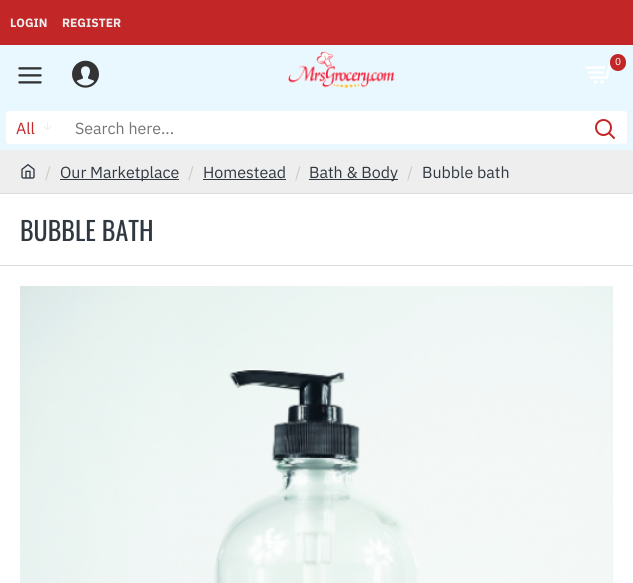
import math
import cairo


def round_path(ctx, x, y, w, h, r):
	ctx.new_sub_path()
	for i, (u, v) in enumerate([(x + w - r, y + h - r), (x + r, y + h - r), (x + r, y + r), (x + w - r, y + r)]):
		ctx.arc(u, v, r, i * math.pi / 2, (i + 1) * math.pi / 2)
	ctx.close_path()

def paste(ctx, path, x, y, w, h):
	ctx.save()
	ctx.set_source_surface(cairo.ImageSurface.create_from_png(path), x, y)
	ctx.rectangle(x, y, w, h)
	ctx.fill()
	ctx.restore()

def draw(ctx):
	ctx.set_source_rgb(1, 1, 1)
	ctx.paint()
	ctx.set_source_rgb(0.761, 0.149, 0.153)
	ctx.rectangle(0, 0, 633, 45)
	ctx.fill()
	ctx.select_font_face('IBM Plex Sans', cairo.FONT_SLANT_NORMAL, cairo.FONT_WEIGHT_BOLD)
	ctx.set_font_size(12)
	ctx.set_source_rgb(0.933, 0.933, 0.933)
	ctx.move_to(10, 27)
	ctx.show_text('LOGIN')
	ctx.move_to(62, 27)
	ctx.show_text('REGISTER')
	ctx.set_source_rgb(0.914, 0.969, 0.996)
	ctx.rectangle(0, 45, 633, 105)
	ctx.fill()
	paste(ctx, 'media/1.png', 18, 67, 24, 17)
	paste(ctx, 'media/2.png', 72, 60, 27, 28)
	paste(ctx, 'media/3.png', 288, 51, 107, 38)
	paste(ctx, 'media/4.png', 585, 61, 26, 23)
	ctx.set_source_rgb(0.761, 0.149, 0.153)
	round_path(ctx, 610, 54, 16, 17, 8)
	ctx.fill()
	ctx.select_font_face('IBM Plex Sans')
	ctx.set_font_size(10)
	ctx.set_source_rgb(1, 1, 1)
	ctx.move_to(615, 65)
	ctx.show_text('0')
	ctx.new_path()
	ctx.move_to(9, 111)
	ctx.line_to(63, 111)
	ctx.line_to(63, 144)
	ctx.line_to(9, 144)
	ctx.curve_to(7.5, 144, 6, 142.5, 6, 141)
	ctx.line_to(6, 114)
	ctx.curve_to(6, 112.5, 7.5, 111, 9, 111)
	ctx.close_path()
	ctx.fill()
	ctx.set_font_size(16)
	ctx.set_source_rgb(0.761, 0.149, 0.153)
	ctx.move_to(16, 134)
	ctx.show_text('All')
	paste(ctx, 'media/5.png', 43, 122, 9, 9)
	ctx.set_source_rgb(1, 1, 1)
	ctx.rectangle(63, 111, 519, 33)
	ctx.fill()
	ctx.set_source_rgb(0.459, 0.459, 0.459)
	ctx.move_to(75, 134)
	ctx.show_text('Search here...')
	ctx.set_source_rgb(1, 1, 1)
	ctx.new_path()
	ctx.move_to(582, 111)
	ctx.line_to(624, 111)
	ctx.curve_to(625.5, 111, 627, 112.5, 627, 114)
	ctx.line_to(627, 141)
	ctx.curve_to(627, 142.5, 625.5, 144, 624, 144)
	ctx.line_to(582, 144)
	ctx.close_path()
	ctx.fill()
	paste(ctx, 'media/6.png', 595, 119, 20, 20)
	ctx.set_source_rgb(0.933, 0.933, 0.933)
	ctx.rectangle(0, 150, 633, 43)
	ctx.fill()
	ctx.set_source_rgb(0.867, 0.867, 0.867)
	ctx.rectangle(0, 193, 633, 1)
	ctx.fill()
	paste(ctx, 'media/7.png', 21, 164, 14, 15)
	ctx.set_source_rgb(0.8, 0.8, 0.8)
	ctx.move_to(45, 178)
	ctx.show_text('/')
	ctx.set_source_rgb(0.188, 0.22, 0.255)
	ctx.rectangle(60, 179, 119, 1)
	ctx.fill()
	ctx.move_to(60, 178)
	ctx.show_text('Our Marketplace')
	ctx.set_source_rgb(0.8, 0.8, 0.8)
	ctx.move_to(188, 178)
	ctx.show_text('/')
	ctx.set_source_rgb(0.188, 0.22, 0.255)
	ctx.move_to(203, 178)
	ctx.show_text('Homestead')
	ctx.rectangle(203, 179, 83, 1)
	ctx.fill()
	ctx.set_source_rgb(0.8, 0.8, 0.8)
	ctx.move_to(295, 178)
	ctx.show_text('/')
	ctx.set_source_rgb(0.188, 0.22, 0.255)
	ctx.rectangle(309, 179, 89, 1)
	ctx.fill()
	ctx.move_to(309, 178)
	ctx.show_text('Bath & Body')
	ctx.set_source_rgb(0.8, 0.8, 0.8)
	ctx.move_to(407, 178)
	ctx.show_text('/')
	ctx.set_source_rgb(0.188, 0.22, 0.255)
	ctx.move_to(422, 178)
	ctx.show_text('Bubble bath')
	ctx.set_source_rgb(0.867, 0.867, 0.867)
	ctx.rectangle(0, 265, 633, 1)
	ctx.fill()
	ctx.select_font_face('Oswald')
	ctx.set_font_size(26)
	ctx.set_source_rgb(0.188, 0.22, 0.255)
	ctx.move_to(20, 241)
	ctx.show_text('BUBBLE BATH')
	paste(ctx, 'media/8.png', 20, 286, 593, 297)


surface = cairo.ImageSurface(cairo.FORMAT_RGB24, 633, 583)
ctx = cairo.Context(surface)
options = cairo.FontOptions()
options.set_hint_metrics(cairo.HINT_METRICS_OFF)
options.set_hint_style(cairo.HINT_STYLE_NONE)
ctx.set_font_options(options)
ctx.set_miter_limit(4)
draw(ctx)
surface.write_to_png('image.png')
